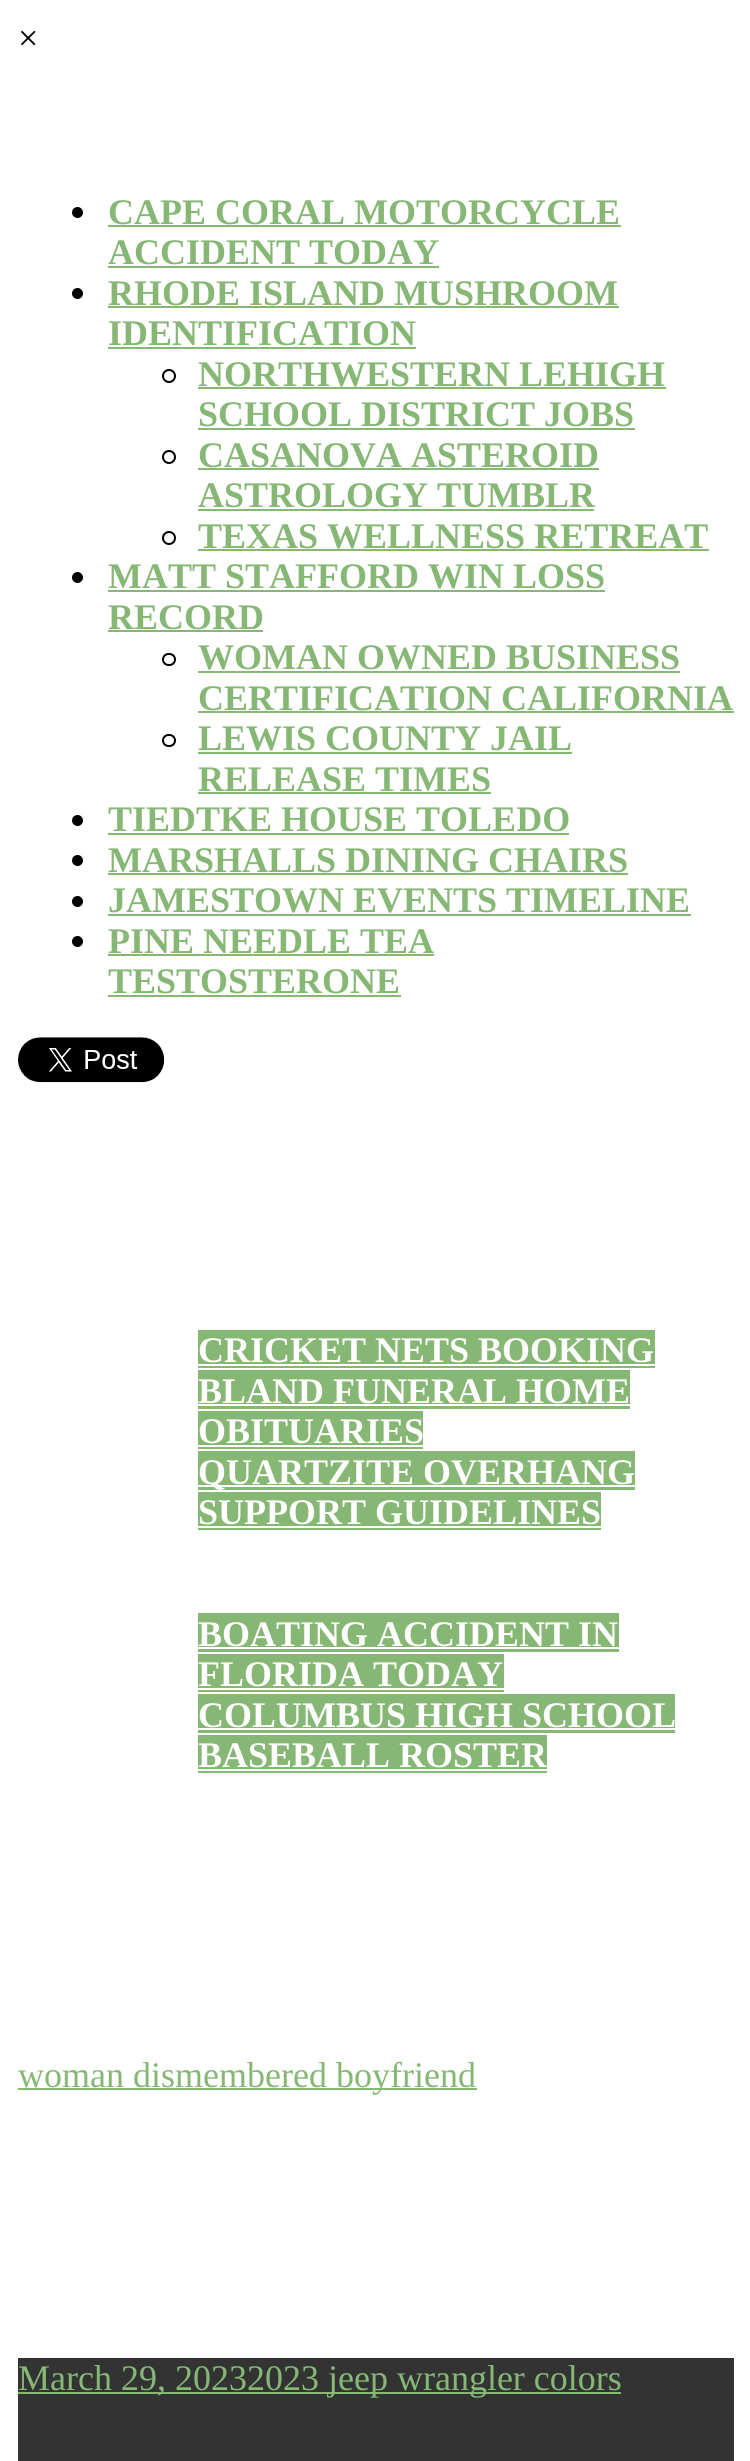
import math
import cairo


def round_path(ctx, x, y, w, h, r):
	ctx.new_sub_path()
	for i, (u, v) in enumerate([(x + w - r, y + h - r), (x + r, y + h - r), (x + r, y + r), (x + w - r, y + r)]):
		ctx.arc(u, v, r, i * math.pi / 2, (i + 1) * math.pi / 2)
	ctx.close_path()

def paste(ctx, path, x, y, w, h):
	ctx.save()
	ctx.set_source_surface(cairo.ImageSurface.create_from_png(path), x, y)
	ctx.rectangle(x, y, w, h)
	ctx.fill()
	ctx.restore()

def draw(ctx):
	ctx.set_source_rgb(1, 1, 1)
	ctx.paint()
	ctx.select_font_face('Liberation Serif')
	ctx.set_font_size(36)
	ctx.set_source_rgb(0, 0, 0)
	ctx.move_to(18, 50)
	ctx.show_text('×')
	ctx.new_path()
	ctx.arc(77.5, 212.5, 5.5, 0, 2 * math.pi)
	ctx.fill()
	ctx.select_font_face('Liberation Serif', cairo.FONT_SLANT_NORMAL, cairo.FONT_WEIGHT_BOLD)
	ctx.set_source_rgb(0.525, 0.718, 0.459)
	ctx.move_to(108, 224)
	ctx.show_text('CAPE CORAL MOTORCYCLE')
	ctx.rectangle(108, 225, 513, 2)
	ctx.fill()
	ctx.move_to(108, 264)
	ctx.show_text('ACCIDENT TODAY')
	ctx.rectangle(108, 266, 331, 2)
	ctx.fill()
	ctx.set_source_rgb(0, 0, 0)
	ctx.arc(77.5, 293.5, 5.5, 0, 2 * math.pi)
	ctx.fill()
	ctx.set_source_rgb(0.525, 0.718, 0.459)
	ctx.move_to(108, 305)
	ctx.show_text('RHODE ISLAND MUSHROOM')
	ctx.rectangle(108, 306, 511, 2)
	ctx.fill()
	ctx.move_to(108, 345)
	ctx.show_text('IDENTIFICATION')
	ctx.rectangle(108, 347, 308, 2)
	ctx.fill()
	ctx.arc(169, 376, 6, 0, 2 * math.pi)
	ctx.set_source_rgb(0, 0, 0)
	ctx.stroke()
	ctx.set_source_rgb(0.525, 0.718, 0.459)
	ctx.move_to(198, 386)
	ctx.show_text('NORTHWESTERN LEHIGH')
	ctx.rectangle(198, 387, 468, 2)
	ctx.fill()
	ctx.move_to(198, 426)
	ctx.show_text('SCHOOL DISTRICT JOBS')
	ctx.rectangle(198, 428, 437, 2)
	ctx.fill()
	ctx.arc(169, 457, 6, 0, 2 * math.pi)
	ctx.set_source_rgb(0, 0, 0)
	ctx.stroke()
	ctx.set_source_rgb(0.525, 0.718, 0.459)
	ctx.move_to(198, 467)
	ctx.show_text('CASANOVA ASTEROID')
	ctx.rectangle(198, 468, 401, 2)
	ctx.fill()
	ctx.move_to(198, 507)
	ctx.show_text('ASTROLOGY TUMBLR')
	ctx.rectangle(198, 509, 396, 2)
	ctx.fill()
	ctx.arc(169, 538, 6, 0, 2 * math.pi)
	ctx.set_source_rgb(0, 0, 0)
	ctx.stroke()
	ctx.set_source_rgb(0.525, 0.718, 0.459)
	ctx.move_to(198, 548)
	ctx.show_text('TEXAS WELLNESS RETREAT')
	ctx.rectangle(198, 549, 511, 2)
	ctx.fill()
	ctx.set_source_rgb(0, 0, 0)
	ctx.arc(77.5, 577.5, 5.5, 0, 2 * math.pi)
	ctx.fill()
	ctx.set_source_rgb(0.525, 0.718, 0.459)
	ctx.move_to(108, 588)
	ctx.show_text('MATT STAFFORD WIN LOSS')
	ctx.rectangle(108, 590, 497, 2)
	ctx.fill()
	ctx.move_to(108, 629)
	ctx.show_text('RECORD')
	ctx.rectangle(108, 630, 155, 2)
	ctx.fill()
	round_path(ctx, 163, 654, 12, 11, 5.5)
	ctx.set_source_rgb(0, 0, 0)
	ctx.stroke()
	ctx.set_source_rgb(0.525, 0.718, 0.459)
	ctx.move_to(198, 669)
	ctx.show_text('WOMAN OWNED BUSINESS')
	ctx.rectangle(198, 671, 482, 2)
	ctx.fill()
	ctx.move_to(198, 710)
	ctx.show_text('CERTIFICATION CALIFORNIA')
	ctx.rectangle(198, 711, 536, 2)
	ctx.fill()
	round_path(ctx, 163, 735, 12, 11, 5.5)
	ctx.set_source_rgb(0, 0, 0)
	ctx.stroke()
	ctx.set_source_rgb(0.525, 0.718, 0.459)
	ctx.move_to(198, 750)
	ctx.show_text('LEWIS COUNTY JAIL')
	ctx.rectangle(198, 752, 374, 2)
	ctx.fill()
	ctx.move_to(198, 791)
	ctx.show_text('RELEASE TIMES')
	ctx.rectangle(198, 792, 293, 2)
	ctx.fill()
	ctx.set_source_rgb(0, 0, 0)
	ctx.arc(77.5, 820.5, 5.5, 0, 2 * math.pi)
	ctx.fill()
	ctx.set_source_rgb(0.525, 0.718, 0.459)
	ctx.move_to(108, 831)
	ctx.show_text('TIEDTKE HOUSE TOLEDO')
	ctx.rectangle(108, 833, 461, 2)
	ctx.fill()
	ctx.set_source_rgb(0, 0, 0)
	ctx.arc(77.5, 860.5, 5.5, 0, 2 * math.pi)
	ctx.fill()
	ctx.set_source_rgb(0.525, 0.718, 0.459)
	ctx.move_to(108, 872)
	ctx.show_text('MARSHALLS DINING CHAIRS')
	ctx.rectangle(108, 873, 520, 2)
	ctx.fill()
	ctx.set_source_rgb(0, 0, 0)
	ctx.arc(77.5, 901.5, 5.5, 0, 2 * math.pi)
	ctx.fill()
	ctx.set_source_rgb(0.525, 0.718, 0.459)
	ctx.move_to(108, 912)
	ctx.show_text('JAMESTOWN EVENTS TIMELINE')
	ctx.rectangle(108, 914, 583, 2)
	ctx.fill()
	ctx.set_source_rgb(0, 0, 0)
	ctx.arc(77.5, 941.5, 5.5, 0, 2 * math.pi)
	ctx.fill()
	ctx.set_source_rgb(0.525, 0.718, 0.459)
	ctx.move_to(108, 953)
	ctx.show_text('PINE NEEDLE TEA')
	ctx.rectangle(108, 954, 326, 2)
	ctx.fill()
	ctx.move_to(108, 993)
	ctx.show_text('TESTOSTERONE')
	ctx.rectangle(108, 995, 293, 2)
	ctx.fill()
	paste(ctx, 'media/1.png', 18, 1037, 147, 46)
	ctx.rectangle(198, 1330, 457, 38)
	ctx.fill()
	ctx.set_source_rgb(1, 1, 1)
	ctx.move_to(198, 1362)
	ctx.show_text('CRICKET NETS BOOKING')
	ctx.rectangle(198, 1364, 457, 2)
	ctx.fill()
	ctx.set_source_rgb(0.525, 0.718, 0.459)
	ctx.rectangle(198, 1370, 432, 39)
	ctx.fill()
	ctx.set_source_rgb(1, 1, 1)
	ctx.move_to(198, 1403)
	ctx.show_text('BLAND FUNERAL HOME')
	ctx.rectangle(198, 1404, 432, 2)
	ctx.fill()
	ctx.set_source_rgb(0.525, 0.718, 0.459)
	ctx.rectangle(198, 1411, 225, 38)
	ctx.fill()
	ctx.set_source_rgb(1, 1, 1)
	ctx.move_to(198, 1443)
	ctx.show_text('OBITUARIES')
	ctx.rectangle(198, 1445, 225, 2)
	ctx.fill()
	ctx.set_source_rgb(0.525, 0.718, 0.459)
	ctx.rectangle(198, 1451, 437, 39)
	ctx.fill()
	ctx.set_source_rgb(1, 1, 1)
	ctx.rectangle(198, 1485, 437, 2)
	ctx.fill()
	ctx.move_to(198, 1484)
	ctx.show_text('QUARTZITE OVERHANG')
	ctx.set_source_rgb(0.525, 0.718, 0.459)
	ctx.rectangle(198, 1492, 403, 38)
	ctx.fill()
	ctx.set_source_rgb(1, 1, 1)
	ctx.move_to(198, 1524)
	ctx.show_text('SUPPORT GUIDELINES')
	ctx.rectangle(198, 1526, 403, 2)
	ctx.fill()
	ctx.set_source_rgb(0.525, 0.718, 0.459)
	ctx.rectangle(198, 1613, 421, 39)
	ctx.fill()
	ctx.set_source_rgb(1, 1, 1)
	ctx.move_to(198, 1646)
	ctx.show_text('BOATING ACCIDENT IN')
	ctx.rectangle(198, 1647, 421, 2)
	ctx.fill()
	ctx.set_source_rgb(0.525, 0.718, 0.459)
	ctx.rectangle(198, 1654, 306, 38)
	ctx.fill()
	ctx.set_source_rgb(1, 1, 1)
	ctx.move_to(198, 1686)
	ctx.show_text('FLORIDA TODAY')
	ctx.rectangle(198, 1688, 306, 2)
	ctx.fill()
	ctx.set_source_rgb(0.525, 0.718, 0.459)
	ctx.rectangle(198, 1694, 477, 39)
	ctx.fill()
	ctx.set_source_rgb(1, 1, 1)
	ctx.move_to(198, 1727)
	ctx.show_text('COLUMBUS HIGH SCHOOL')
	ctx.rectangle(198, 1728, 477, 2)
	ctx.fill()
	ctx.set_source_rgb(0.525, 0.718, 0.459)
	ctx.rectangle(198, 1735, 349, 38)
	ctx.fill()
	ctx.set_source_rgb(1, 1, 1)
	ctx.move_to(198, 1767)
	ctx.show_text('BASEBALL ROSTER')
	ctx.rectangle(198, 1769, 349, 2)
	ctx.fill()
	ctx.set_source_rgb(0.525, 0.718, 0.459)
	ctx.rectangle(18, 2088, 459, 2)
	ctx.fill()
	ctx.select_font_face('Liberation Serif')
	ctx.move_to(18, 2087)
	ctx.show_text('woman dismembered boyfriend')
	ctx.set_source_rgb(0.2, 0.2, 0.2)
	ctx.rectangle(18, 2358, 716, 103)
	ctx.fill()
	ctx.set_source_rgb(0.525, 0.718, 0.459)
	ctx.rectangle(18, 2392, 603, 2)
	ctx.fill()
	ctx.move_to(18, 2390)
	ctx.show_text('March 29, 20232023 jeep wrangler colors')


surface = cairo.ImageSurface(cairo.FORMAT_RGB24, 750, 2461)
ctx = cairo.Context(surface)
options = cairo.FontOptions()
options.set_hint_metrics(cairo.HINT_METRICS_OFF)
options.set_hint_style(cairo.HINT_STYLE_NONE)
ctx.set_font_options(options)
ctx.set_miter_limit(4)
draw(ctx)
surface.write_to_png('image.png')
